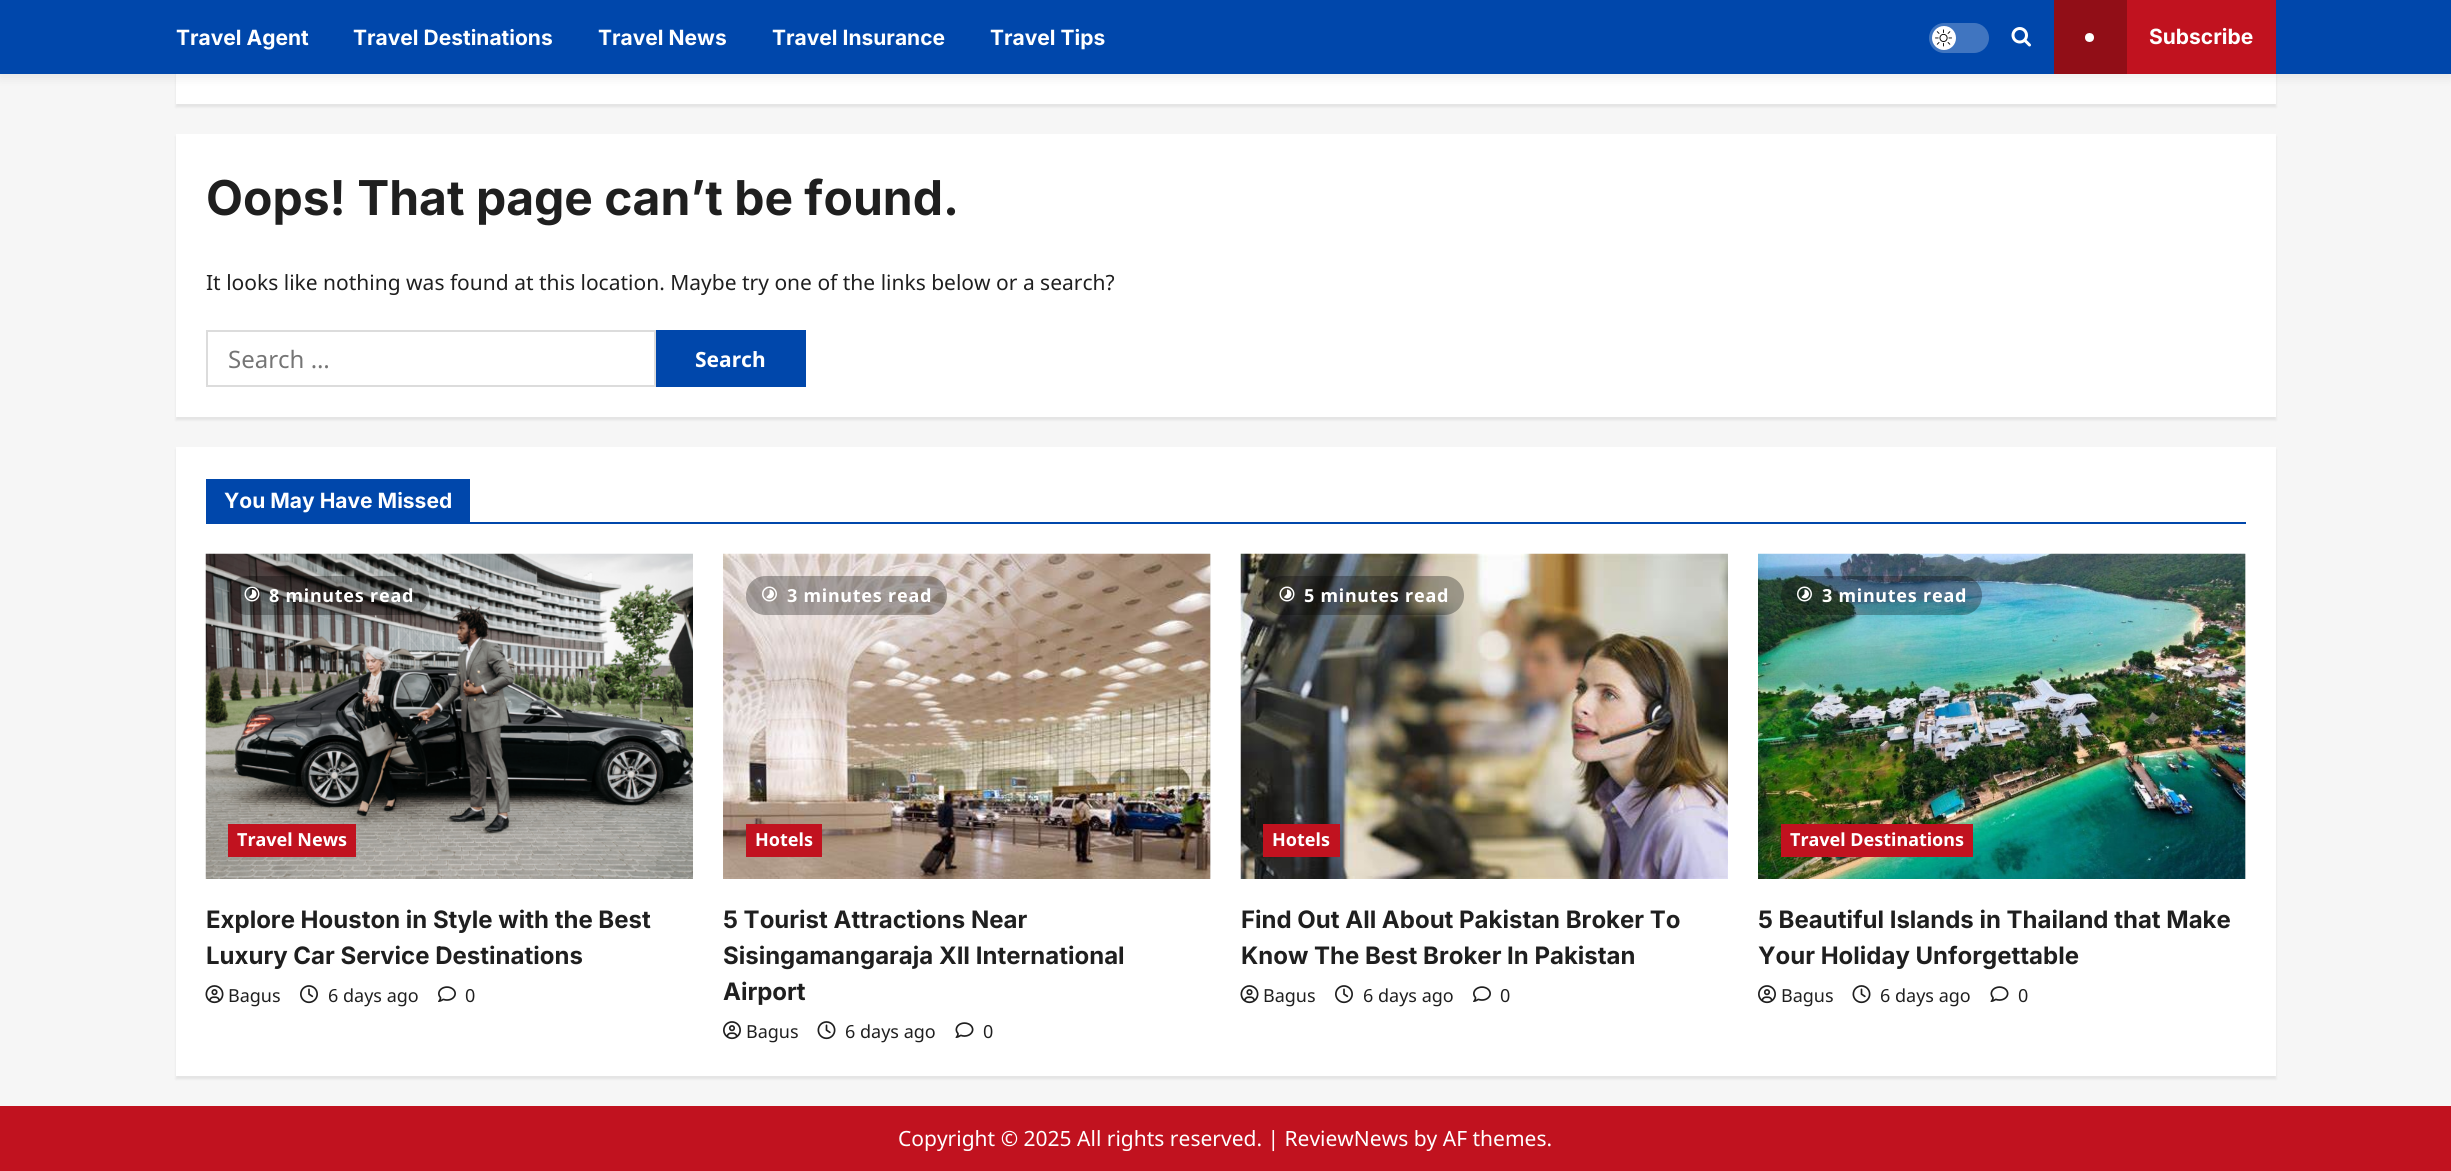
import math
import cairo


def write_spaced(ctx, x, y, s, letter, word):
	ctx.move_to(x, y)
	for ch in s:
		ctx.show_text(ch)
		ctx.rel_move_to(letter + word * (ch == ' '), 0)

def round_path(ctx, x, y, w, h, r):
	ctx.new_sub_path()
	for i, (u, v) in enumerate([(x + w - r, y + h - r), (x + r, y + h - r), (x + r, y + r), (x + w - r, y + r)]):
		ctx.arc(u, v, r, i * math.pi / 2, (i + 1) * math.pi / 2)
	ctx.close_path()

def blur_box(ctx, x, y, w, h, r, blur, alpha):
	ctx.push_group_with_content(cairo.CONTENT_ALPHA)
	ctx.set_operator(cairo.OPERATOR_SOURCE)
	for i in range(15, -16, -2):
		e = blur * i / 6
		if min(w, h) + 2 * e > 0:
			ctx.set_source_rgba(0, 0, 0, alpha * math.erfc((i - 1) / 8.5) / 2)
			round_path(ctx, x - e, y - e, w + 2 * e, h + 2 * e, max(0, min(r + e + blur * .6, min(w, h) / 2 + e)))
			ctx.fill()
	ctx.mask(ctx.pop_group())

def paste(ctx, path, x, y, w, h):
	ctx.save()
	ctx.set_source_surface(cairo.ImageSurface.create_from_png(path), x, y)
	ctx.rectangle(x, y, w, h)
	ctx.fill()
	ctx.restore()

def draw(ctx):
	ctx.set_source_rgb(0.961, 0.961, 0.961)
	ctx.paint()
	ctx.set_source_rgb(0, 0, 0)
	blur_box(ctx, 176, 26, 2100, 81, 0, 1.5, 0.08)
	ctx.set_source_rgb(1, 1, 1)
	ctx.rectangle(176, 74, 2100, 30)
	ctx.fill()
	ctx.set_source_rgb(0, 0, 0)
	blur_box(ctx, 0, 3, 2451, 74, 0, 6, 0.08)
	ctx.set_source_rgb(0, 0.278, 0.671)
	ctx.rectangle(0, 0, 2451, 74)
	ctx.fill()
	ctx.select_font_face('Inter', cairo.FONT_SLANT_NORMAL, cairo.FONT_WEIGHT_BOLD)
	ctx.set_font_size(21)
	ctx.set_source_rgb(1, 1, 1)
	for x, y, s in [
		(176, 45, 'Travel Agent'),
		(353, 45, 'Travel Destinations'),
		(598, 45, 'Travel News'),
		(772, 45, 'Travel Insurance'),
		(990, 45, 'Travel Tips'),
	]:
		ctx.move_to(x, y)
		ctx.show_text(s)
	ctx.set_source_rgb(0.251, 0.459, 0.753)
	round_path(ctx, 1929, 23, 60, 30, 15)
	ctx.fill()
	ctx.set_source_rgb(1, 1, 1)
	ctx.arc(1944, 38, 12, 0, 2 * math.pi)
	ctx.fill()
	paste(ctx, 'media/1.png', 1935, 29, 17, 18)
	paste(ctx, 'media/2.png', 2011, 27, 20, 20)
	ctx.set_source_rgb(0.757, 0.071, 0.122)
	ctx.rectangle(2127, 0, 149, 74)
	ctx.fill()
	ctx.set_source_rgb(0.569, 0.055, 0.09)
	ctx.rectangle(2054, 0, 73, 74)
	ctx.fill()
	ctx.set_source_rgb(1, 1, 1)
	ctx.arc(2089.5, 37.5, 4.5, 0, 2 * math.pi)
	ctx.fill()
	ctx.move_to(2149, 44)
	ctx.show_text('Subscribe')
	ctx.set_source_rgb(0, 0, 0)
	blur_box(ctx, 176, 137, 2100, 283, 0, 1.5, 0.08)
	ctx.set_source_rgb(1, 1, 1)
	ctx.rectangle(176, 134, 2100, 283)
	ctx.fill()
	ctx.set_font_size(48)
	ctx.set_source_rgb(0.122, 0.122, 0.122)
	ctx.move_to(206, 215)
	ctx.show_text('Oops! That page can’t be found.')
	ctx.select_font_face('Noto Sans')
	ctx.set_font_size(21)
	ctx.move_to(206, 290)
	ctx.show_text('It looks like nothing was found at this location. Maybe try one of the links below or a search?')
	ctx.rectangle(207, 331, 448, 55)
	ctx.set_source_rgb(0.863, 0.863, 0.863)
	ctx.stroke()
	ctx.set_font_size(24)
	ctx.set_source_rgb(0.459, 0.459, 0.459)
	ctx.move_to(228, 368)
	ctx.show_text('Search …')
	ctx.set_source_rgb(0, 0.278, 0.671)
	ctx.rectangle(656, 330, 150, 57)
	ctx.fill()
	ctx.select_font_face('Noto Sans', cairo.FONT_SLANT_NORMAL, cairo.FONT_WEIGHT_BOLD)
	ctx.set_font_size(21)
	ctx.set_source_rgb(1, 1, 1)
	ctx.move_to(695, 367)
	ctx.show_text('Search')
	ctx.set_source_rgb(0, 0, 0)
	blur_box(ctx, 176, 450, 2100, 629, 0, 1.5, 0.08)
	ctx.set_source_rgb(1, 1, 1)
	ctx.rectangle(176, 447, 2100, 629)
	ctx.fill()
	ctx.set_source_rgb(0, 0.278, 0.671)
	ctx.rectangle(206, 522, 2040, 2)
	ctx.rectangle(206, 479, 264, 43)
	ctx.fill()
	ctx.select_font_face('Inter', cairo.FONT_SLANT_NORMAL, cairo.FONT_WEIGHT_BOLD)
	ctx.set_source_rgb(1, 1, 1)
	ctx.move_to(224, 508)
	ctx.show_text('You May Have Missed')
	paste(ctx, 'media/3.png', 205, 553, 488, 326)
	ctx.set_source_rgba(0, 0, 0, 0.3)
	round_path(ctx, 228, 576, 201, 39, 19.5)
	ctx.fill()
	paste(ctx, 'media/4.png', 244, 586, 16, 16)
	ctx.select_font_face('Noto Sans', cairo.FONT_SLANT_NORMAL, cairo.FONT_WEIGHT_BOLD)
	ctx.set_font_size(18)
	ctx.set_source_rgb(1, 1, 1)
	write_spaced(ctx, 269, 602, '8 minutes read', 0.75, 0)
	ctx.set_source_rgb(0.757, 0.071, 0.122)
	ctx.rectangle(228, 824, 128, 33)
	ctx.fill()
	ctx.set_source_rgb(1, 1, 1)
	ctx.move_to(237, 846)
	ctx.show_text('Travel News')
	ctx.select_font_face('Inter', cairo.FONT_SLANT_NORMAL, cairo.FONT_WEIGHT_BOLD)
	ctx.set_font_size(24)
	ctx.set_source_rgb(0.122, 0.122, 0.122)
	ctx.move_to(206, 928)
	ctx.show_text('Explore Houston in Style with the Best')
	ctx.move_to(206, 964)
	ctx.show_text('Luxury Car Service Destinations')
	paste(ctx, 'media/5.png', 205, 985, 19, 19)
	ctx.select_font_face('Noto Sans')
	ctx.set_font_size(18)
	ctx.move_to(228, 1002)
	ctx.show_text('Bagus')
	paste(ctx, 'media/6.png', 300, 985, 18, 19)
	ctx.move_to(328, 1002)
	ctx.show_text('6 days ago')
	paste(ctx, 'media/7.png', 438, 986, 18, 16)
	ctx.move_to(465, 1002)
	ctx.show_text('0')
	ctx.set_source_rgb(0.925, 0.925, 0.925)
	ctx.rectangle(1210, 554, 1, 325)
	ctx.fill()
	paste(ctx, 'media/8.png', 723, 553, 488, 326)
	ctx.set_source_rgba(0, 0, 0, 0.3)
	round_path(ctx, 746, 576, 201, 39, 19.5)
	ctx.fill()
	paste(ctx, 'media/9.png', 762, 586, 15, 16)
	ctx.select_font_face('Noto Sans', cairo.FONT_SLANT_NORMAL, cairo.FONT_WEIGHT_BOLD)
	ctx.set_source_rgb(1, 1, 1)
	write_spaced(ctx, 787, 602, '3 minutes read', 0.75, 0)
	ctx.set_source_rgb(0.757, 0.071, 0.122)
	ctx.rectangle(746, 824, 76, 33)
	ctx.fill()
	ctx.set_source_rgb(1, 1, 1)
	ctx.move_to(755, 846)
	ctx.show_text('Hotels')
	ctx.select_font_face('Inter', cairo.FONT_SLANT_NORMAL, cairo.FONT_WEIGHT_BOLD)
	ctx.set_font_size(24)
	ctx.set_source_rgb(0.122, 0.122, 0.122)
	for x, y, s in [
		(723, 928, '5 Tourist Attractions Near'),
		(723, 964, 'Sisingamangaraja XII International'),
		(723, 1000, 'Airport'),
	]:
		ctx.move_to(x, y)
		ctx.show_text(s)
	paste(ctx, 'media/10.png', 723, 1021, 18, 19)
	ctx.select_font_face('Noto Sans')
	ctx.set_font_size(18)
	ctx.move_to(746, 1038)
	ctx.show_text('Bagus')
	paste(ctx, 'media/11.png', 817, 1021, 19, 19)
	ctx.move_to(845, 1038)
	ctx.show_text('6 days ago')
	paste(ctx, 'media/12.png', 955, 1022, 19, 16)
	ctx.move_to(983, 1038)
	ctx.show_text('0')
	paste(ctx, 'media/13.png', 1240, 553, 488, 326)
	ctx.set_source_rgba(0, 0, 0, 0.3)
	round_path(ctx, 1263, 576, 201, 39, 19.5)
	ctx.fill()
	paste(ctx, 'media/14.png', 1279, 586, 16, 16)
	ctx.select_font_face('Noto Sans', cairo.FONT_SLANT_NORMAL, cairo.FONT_WEIGHT_BOLD)
	ctx.set_source_rgb(1, 1, 1)
	write_spaced(ctx, 1304, 602, '5 minutes read', 0.75, 0)
	ctx.set_source_rgb(0.757, 0.071, 0.122)
	ctx.rectangle(1263, 824, 77, 33)
	ctx.fill()
	ctx.set_source_rgb(1, 1, 1)
	ctx.move_to(1272, 846)
	ctx.show_text('Hotels')
	ctx.select_font_face('Inter', cairo.FONT_SLANT_NORMAL, cairo.FONT_WEIGHT_BOLD)
	ctx.set_font_size(24)
	ctx.set_source_rgb(0.122, 0.122, 0.122)
	ctx.move_to(1241, 928)
	ctx.show_text('Find Out All About Pakistan Broker To')
	ctx.move_to(1241, 964)
	ctx.show_text('Know The Best Broker In Pakistan')
	paste(ctx, 'media/5.png', 1240, 985, 19, 19)
	ctx.select_font_face('Noto Sans')
	ctx.set_font_size(18)
	ctx.move_to(1263, 1002)
	ctx.show_text('Bagus')
	paste(ctx, 'media/6.png', 1335, 985, 18, 19)
	ctx.move_to(1363, 1002)
	ctx.show_text('6 days ago')
	paste(ctx, 'media/7.png', 1473, 986, 18, 16)
	ctx.move_to(1500, 1002)
	ctx.show_text('0')
	ctx.set_source_rgb(0.925, 0.925, 0.925)
	ctx.rectangle(2245, 554, 1, 325)
	ctx.fill()
	paste(ctx, 'media/15.png', 1758, 553, 488, 326)
	ctx.set_source_rgba(0, 0, 0, 0.3)
	round_path(ctx, 1781, 576, 201, 39, 19.5)
	ctx.fill()
	paste(ctx, 'media/16.png', 1797, 586, 15, 16)
	ctx.select_font_face('Noto Sans', cairo.FONT_SLANT_NORMAL, cairo.FONT_WEIGHT_BOLD)
	ctx.set_source_rgb(1, 1, 1)
	write_spaced(ctx, 1822, 602, '3 minutes read', 0.75, 0)
	ctx.set_source_rgb(0.757, 0.071, 0.122)
	ctx.rectangle(1781, 824, 192, 33)
	ctx.fill()
	ctx.set_source_rgb(1, 1, 1)
	ctx.move_to(1790, 846)
	ctx.show_text('Travel Destinations')
	ctx.select_font_face('Inter', cairo.FONT_SLANT_NORMAL, cairo.FONT_WEIGHT_BOLD)
	ctx.set_font_size(24)
	ctx.set_source_rgb(0.122, 0.122, 0.122)
	ctx.move_to(1758, 928)
	ctx.show_text('5 Beautiful Islands in Thailand that Make')
	ctx.move_to(1758, 964)
	ctx.show_text('Your Holiday Unforgettable')
	paste(ctx, 'media/10.png', 1758, 985, 18, 19)
	ctx.select_font_face('Noto Sans')
	ctx.set_font_size(18)
	ctx.move_to(1781, 1002)
	ctx.show_text('Bagus')
	paste(ctx, 'media/11.png', 1852, 985, 19, 19)
	ctx.move_to(1880, 1002)
	ctx.show_text('6 days ago')
	paste(ctx, 'media/12.png', 1990, 986, 19, 16)
	ctx.move_to(2018, 1002)
	ctx.show_text('0')
	ctx.set_source_rgb(0.757, 0.071, 0.122)
	ctx.rectangle(0, 1106, 2451, 65)
	ctx.fill()
	ctx.set_font_size(21)
	ctx.set_source_rgb(1, 1, 1)
	ctx.move_to(898, 1146)
	ctx.show_text('Copyright © 2025 All rights reserved. | ReviewNews by AF themes.')


surface = cairo.ImageSurface(cairo.FORMAT_RGB24, 2451, 1171)
ctx = cairo.Context(surface)
options = cairo.FontOptions()
options.set_hint_metrics(cairo.HINT_METRICS_OFF)
options.set_hint_style(cairo.HINT_STYLE_NONE)
ctx.set_font_options(options)
ctx.set_miter_limit(4)
draw(ctx)
surface.write_to_png('image.png')
